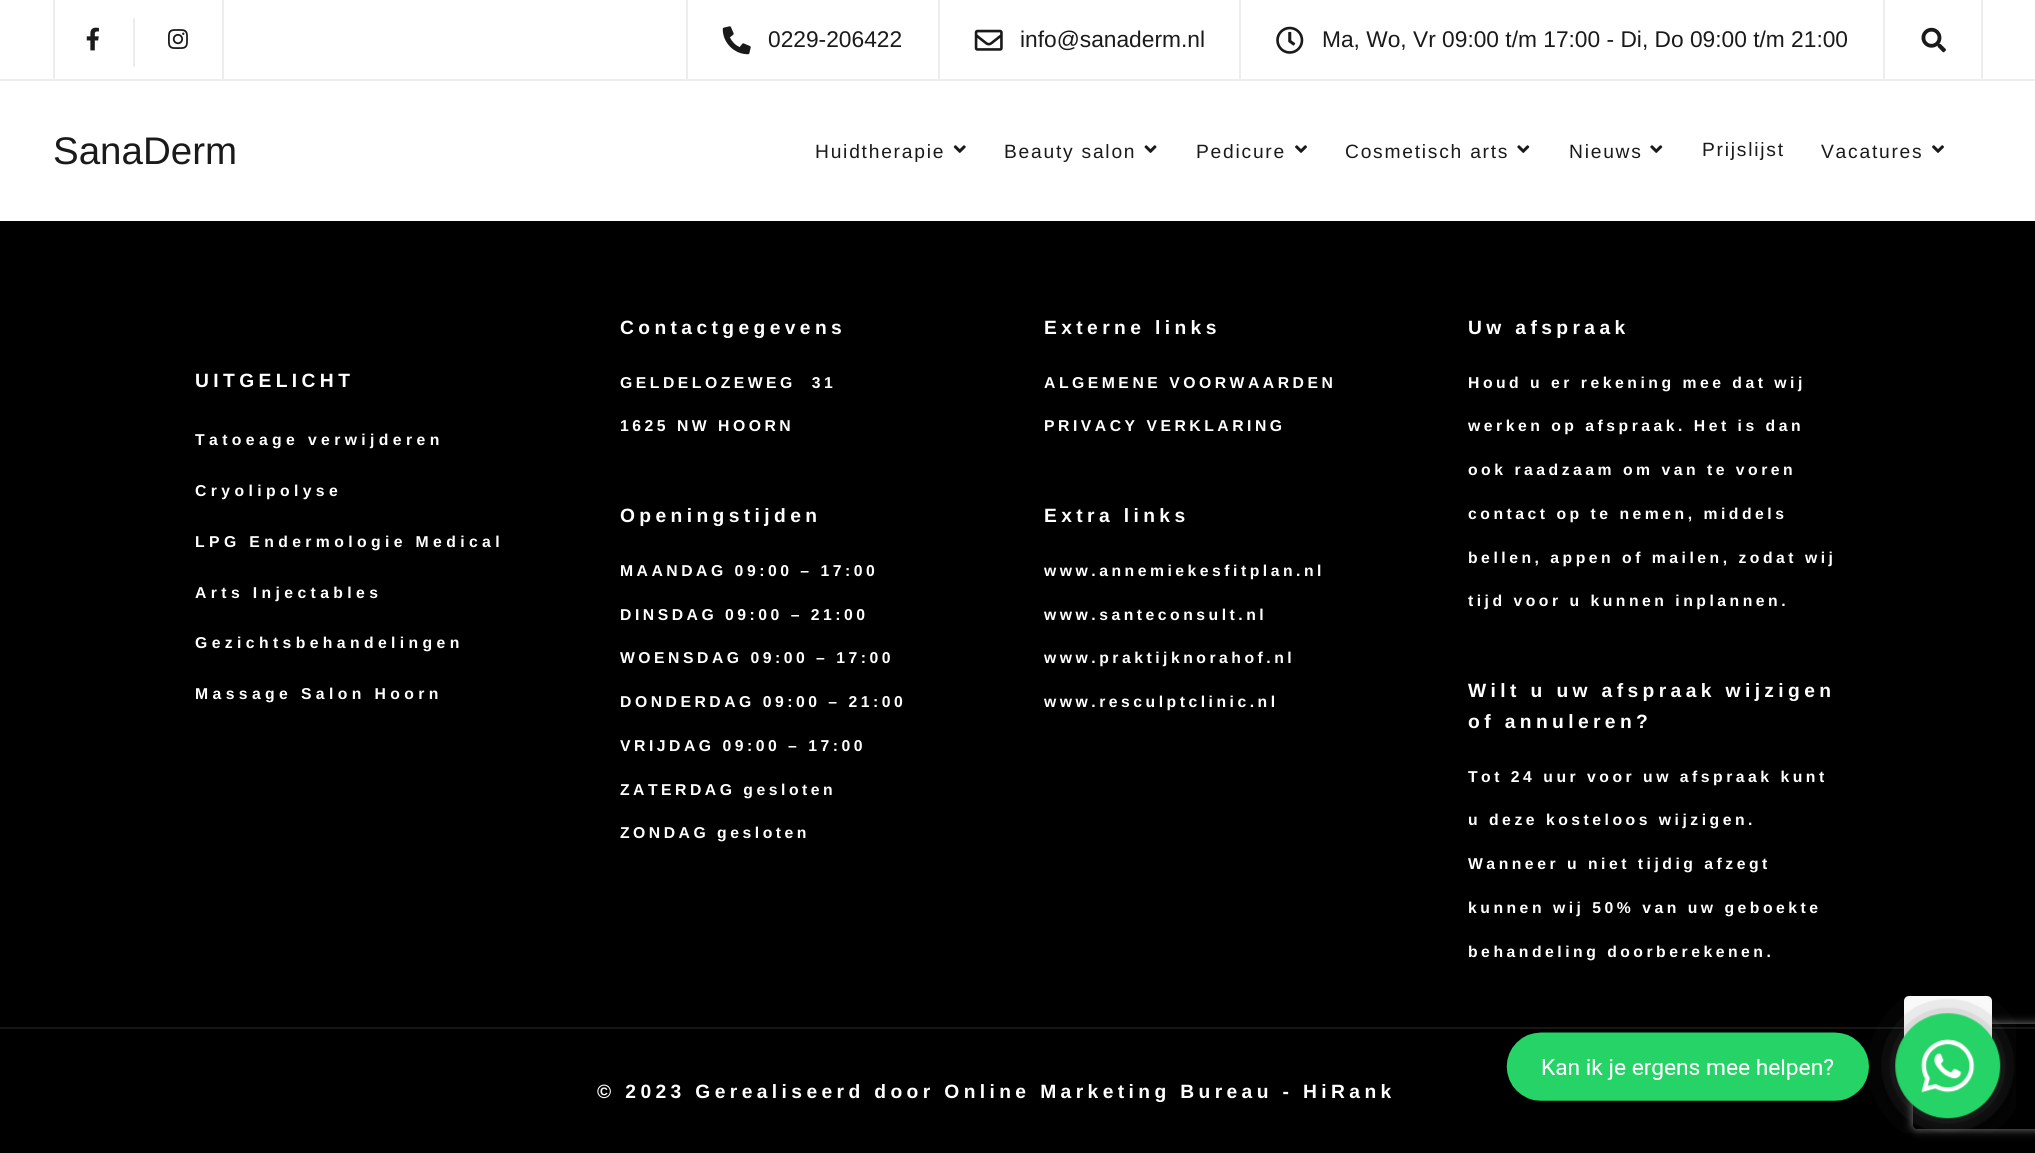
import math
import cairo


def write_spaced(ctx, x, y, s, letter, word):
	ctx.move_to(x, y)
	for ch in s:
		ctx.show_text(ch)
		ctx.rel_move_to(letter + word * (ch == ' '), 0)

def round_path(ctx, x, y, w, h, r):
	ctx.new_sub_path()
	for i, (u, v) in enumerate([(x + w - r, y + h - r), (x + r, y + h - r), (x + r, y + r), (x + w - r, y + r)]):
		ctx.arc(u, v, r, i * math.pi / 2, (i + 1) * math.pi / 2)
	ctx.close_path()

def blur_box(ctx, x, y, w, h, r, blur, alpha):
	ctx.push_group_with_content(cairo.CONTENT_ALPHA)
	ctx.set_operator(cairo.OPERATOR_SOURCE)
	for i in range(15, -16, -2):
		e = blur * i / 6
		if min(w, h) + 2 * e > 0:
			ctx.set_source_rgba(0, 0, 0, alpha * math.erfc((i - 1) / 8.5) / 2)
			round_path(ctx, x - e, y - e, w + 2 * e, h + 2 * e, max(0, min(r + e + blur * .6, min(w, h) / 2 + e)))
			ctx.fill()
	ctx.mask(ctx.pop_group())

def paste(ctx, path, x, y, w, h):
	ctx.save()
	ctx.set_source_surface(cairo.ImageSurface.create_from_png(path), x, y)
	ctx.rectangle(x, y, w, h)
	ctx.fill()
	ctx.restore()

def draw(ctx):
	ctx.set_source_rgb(0, 0, 0)
	ctx.paint()
	ctx.set_source_rgb(1, 1, 1)
	ctx.rectangle(0, 0, 2035, 221)
	ctx.fill()
	ctx.set_source_rgb(0.929, 0.929, 0.929)
	ctx.rectangle(0, 79, 2035, 2)
	ctx.rectangle(222, 0, 2, 79)
	ctx.rectangle(53, 0, 2, 79)
	ctx.rectangle(133, 18, 2, 49)
	ctx.fill()
	paste(ctx, 'media/1.png', 86, 27, 13, 24)
	paste(ctx, 'media/2.png', 168, 29, 20, 20)
	ctx.rectangle(686, 0, 2, 79)
	ctx.fill()
	ctx.rectangle(938, 0, 2, 79)
	ctx.fill()
	paste(ctx, 'media/3.png', 722, 26, 29, 29)
	ctx.select_font_face('Liberation Sans')
	ctx.set_font_size(22.75)
	ctx.set_source_rgb(0.102, 0.102, 0.102)
	ctx.move_to(768, 47)
	ctx.show_text('0229-206422')
	ctx.set_source_rgb(0.929, 0.929, 0.929)
	ctx.rectangle(1239, 0, 2, 79)
	ctx.fill()
	paste(ctx, 'media/4.png', 974, 29, 29, 22)
	ctx.set_source_rgb(0.102, 0.102, 0.102)
	ctx.move_to(1020, 47)
	ctx.show_text('info@sanaderm.nl')
	paste(ctx, 'media/5.png', 1276, 26, 28, 28)
	ctx.move_to(1322, 47)
	ctx.show_text('Ma, Wo, Vr 09:00 t/m 17:00 - Di, Do 09:00 t/m 21:00')
	ctx.set_source_rgb(0.929, 0.929, 0.929)
	ctx.rectangle(1981, 0, 2, 79)
	ctx.fill()
	ctx.rectangle(1883, 0, 2, 79)
	ctx.fill()
	paste(ctx, 'media/6.png', 1921, 27, 25, 26)
	ctx.set_font_size(38.5)
	ctx.set_source_rgb(0.102, 0.102, 0.102)
	ctx.move_to(53, 164)
	ctx.show_text('SanaDerm')
	ctx.set_font_size(19.25)
	write_spaced(ctx, 815, 158, 'Huidtherapie', 1.75, 0)
	paste(ctx, 'media/7.png', 953, 145, 13, 8)
	write_spaced(ctx, 1004, 158, 'Beauty salon', 1.75, 0)
	paste(ctx, 'media/8.png', 1144, 145, 13, 8)
	write_spaced(ctx, 1196, 158, 'Pedicure', 1.75, 0)
	paste(ctx, 'media/9.png', 1295, 145, 12, 8)
	write_spaced(ctx, 1345, 158, 'Cosmetisch arts', 1.75, 0)
	paste(ctx, 'media/10.png', 1517, 145, 13, 8)
	write_spaced(ctx, 1569, 158, 'Nieuws', 1.75, 0)
	paste(ctx, 'media/10.png', 1650, 145, 13, 8)
	write_spaced(ctx, 1702, 156, 'Prijslijst', 1.75, 0)
	write_spaced(ctx, 1821, 158, 'Vacatures', 1.75, 0)
	paste(ctx, 'media/9.png', 1932, 145, 12, 8)
	ctx.select_font_face('Liberation Sans', cairo.FONT_SLANT_NORMAL, cairo.FONT_WEIGHT_BOLD)
	ctx.set_source_rgb(1, 1, 1)
	write_spaced(ctx, 195, 387, 'UITGELICHT', 4.38, 0)
	ctx.set_font_size(15.75)
	for x, y, s in [
		(195, 445, 'Tatoeage verwijderen'),
		(195, 496, 'Cryolipolyse'),
		(195, 547, 'LPG Endermologie Medical'),
		(195, 598, 'Arts Injectables'),
		(195, 648, 'Gezichtsbehandelingen'),
		(195, 699, 'Massage Salon Hoorn'),
	]:
		write_spaced(ctx, x, y, s, 4.38, 0)
	ctx.set_font_size(19.25)
	write_spaced(ctx, 620, 334, 'Contactgegevens', 4.38, 0)
	ctx.set_font_size(15.75)
	write_spaced(ctx, 620, 388, 'GELDELOZEWEG 31', 3.5, 8)
	write_spaced(ctx, 620, 431, '1625 NW HOORN', 3.5, 0)
	ctx.set_font_size(19.25)
	write_spaced(ctx, 620, 522, 'Openingstijden', 4.38, 0)
	ctx.set_font_size(15.75)
	for x, y, s in [
		(620, 576, 'MAANDAG 09:00 – 17:00'),
		(620, 620, 'DINSDAG 09:00 – 21:00'),
		(620, 663, 'WOENSDAG 09:00 – 17:00'),
		(620, 707, 'DONDERDAG 09:00 – 21:00'),
		(620, 751, 'VRIJDAG 09:00 – 17:00'),
		(620, 795, 'ZATERDAG gesloten'),
		(620, 838, 'ZONDAG gesloten'),
	]:
		write_spaced(ctx, x, y, s, 3.5, 0)
	ctx.set_font_size(19.25)
	write_spaced(ctx, 1044, 334, 'Externe links', 4.38, 0)
	ctx.set_font_size(15.75)
	write_spaced(ctx, 1044, 388, 'ALGEMENE VOORWAARDEN', 3.5, 0)
	write_spaced(ctx, 1044, 431, 'PRIVACY VERKLARING', 3.5, 0)
	ctx.set_font_size(19.25)
	write_spaced(ctx, 1044, 522, 'Extra links', 4.38, 0)
	ctx.set_font_size(15.75)
	for x, y, s in [
		(1044, 576, 'www.annemiekesfitplan.nl'),
		(1044, 620, 'www.santeconsult.nl'),
		(1044, 663, 'www.praktijknorahof.nl'),
		(1044, 707, 'www.resculptclinic.nl'),
	]:
		write_spaced(ctx, x, y, s, 3.5, 0)
	ctx.set_font_size(19.25)
	write_spaced(ctx, 1468, 334, 'Uw afspraak', 4.38, 0)
	ctx.set_font_size(15.75)
	for x, y, s in [
		(1468, 388, 'Houd u er rekening mee dat wij'),
		(1468, 431, 'werken op afspraak. Het is dan'),
		(1468, 475, 'ook raadzaam om van te voren'),
		(1468, 519, 'contact op te nemen, middels'),
		(1468, 563, 'bellen, appen of mailen, zodat wij'),
		(1468, 606, 'tijd voor u kunnen inplannen.'),
	]:
		write_spaced(ctx, x, y, s, 3.5, 0)
	ctx.set_font_size(19.25)
	write_spaced(ctx, 1468, 697, 'Wilt u uw afspraak wijzigen', 4.38, 0)
	write_spaced(ctx, 1468, 728, 'of annuleren?', 4.38, 0)
	ctx.set_font_size(15.75)
	for x, y, s in [
		(1468, 782, 'Tot 24 uur voor uw afspraak kunt'),
		(1468, 825, 'u deze kosteloos wijzigen.'),
		(1468, 869, 'Wanneer u niet tijdig afzegt'),
		(1468, 913, 'kunnen wij 50% van uw geboekte'),
		(1468, 957, 'behandeling doorberekenen.'),
	]:
		write_spaced(ctx, x, y, s, 3.5, 0)
	ctx.set_source_rgb(0.086, 0.086, 0.086)
	ctx.rectangle(0, 1027, 2035, 2)
	ctx.fill()
	ctx.set_font_size(19.25)
	ctx.set_source_rgb(1, 1, 1)
	write_spaced(ctx, 597, 1098, '© 2023 Gerealiseerd door Online Marketing Bureau - HiRank', 4.38, 0)
	paste(ctx, 'media/11.png', 1506, 1032, 363, 69)
	ctx.save()
	ctx.set_fill_rule(cairo.FILL_RULE_EVEN_ODD)
	ctx.new_path()
	ctx.move_to(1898, 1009)
	ctx.line_to(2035, 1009)
	ctx.line_to(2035, 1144)
	ctx.line_to(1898, 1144)
	ctx.close_path()
	ctx.move_to(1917, 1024)
	ctx.line_to(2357, 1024)
	ctx.curve_to(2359, 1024, 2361, 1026, 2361, 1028)
	ctx.line_to(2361, 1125)
	ctx.curve_to(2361, 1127, 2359, 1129, 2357, 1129)
	ctx.line_to(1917, 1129)
	ctx.curve_to(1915, 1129, 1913, 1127, 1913, 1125)
	ctx.line_to(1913, 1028)
	ctx.curve_to(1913, 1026, 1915, 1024, 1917, 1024)
	ctx.close_path()
	ctx.clip()
	ctx.set_source_rgb(0.502, 0.502, 0.502)
	blur_box(ctx, 1913, 1024, 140, 105, 4, 4.5, 1)
	ctx.restore()
	round_path(ctx, 1904, 996, 88, 87, 5)
	ctx.fill()
	paste(ctx, 'media/12.png', 1868, 996, 148, 137)


surface = cairo.ImageSurface(cairo.FORMAT_RGB24, 2035, 1153)
ctx = cairo.Context(surface)
options = cairo.FontOptions()
options.set_hint_metrics(cairo.HINT_METRICS_OFF)
options.set_hint_style(cairo.HINT_STYLE_NONE)
ctx.set_font_options(options)
ctx.set_miter_limit(4)
draw(ctx)
surface.write_to_png('image.png')
